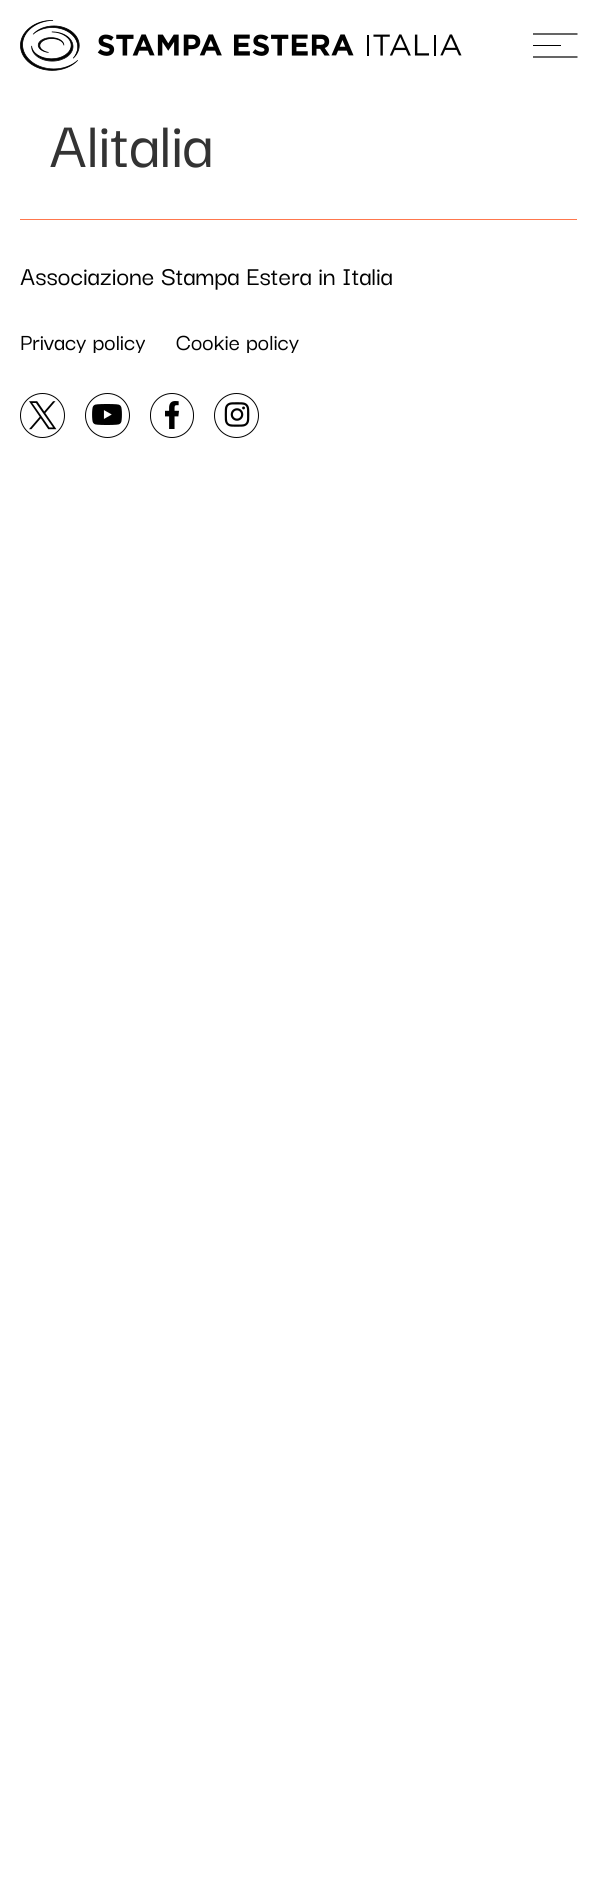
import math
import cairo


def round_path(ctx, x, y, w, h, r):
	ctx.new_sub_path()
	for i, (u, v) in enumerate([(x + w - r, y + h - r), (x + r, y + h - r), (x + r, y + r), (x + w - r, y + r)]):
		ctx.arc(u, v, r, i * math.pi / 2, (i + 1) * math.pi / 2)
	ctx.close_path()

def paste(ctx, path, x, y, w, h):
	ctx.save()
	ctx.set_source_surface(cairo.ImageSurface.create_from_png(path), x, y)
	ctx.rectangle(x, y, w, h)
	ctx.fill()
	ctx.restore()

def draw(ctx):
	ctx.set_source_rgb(1, 1, 1)
	ctx.paint()
	paste(ctx, 'media/1.png', 20, 20, 442, 51)
	ctx.new_path()
	ctx.move_to(533, 34)
	ctx.line_to(577.5, 34)
	ctx.move_to(533, 57)
	ctx.line_to(577.5, 57)
	ctx.set_source_rgb(0, 0, 0)
	ctx.set_line_width(1.2)
	ctx.stroke()
	ctx.rectangle(533, 45, 28, 1)
	ctx.fill()
	ctx.select_font_face('Darker Grotesque Medium')
	ctx.set_font_size(70)
	ctx.set_source_rgb(0.2, 0.2, 0.2)
	ctx.move_to(49, 167)
	ctx.show_text('Alitalia')
	ctx.set_source_rgb(1, 0.467, 0.302)
	ctx.rectangle(20, 219, 557, 1)
	ctx.fill()
	ctx.set_font_size(28)
	ctx.set_source_rgb(0.004, 0.004, 0.004)
	ctx.move_to(20, 285)
	ctx.show_text('Associazione Stampa Estera in Italia')
	ctx.save()
	ctx.rectangle(20, 328, 537, 25)
	ctx.clip()
	ctx.set_font_size(25)
	ctx.move_to(20, 350)
	ctx.show_text('Privacy policy')
	ctx.move_to(176, 350)
	ctx.show_text('Cookie policy')
	ctx.restore()
	ctx.new_path()
	ctx.arc(42.5, 415.5, 22, 0, 2 * math.pi)
	ctx.set_line_width(1)
	ctx.stroke()
	paste(ctx, 'media/2.png', 29, 401, 28, 29)
	ctx.arc(107.5, 415.5, 22, 0, 2 * math.pi)
	ctx.stroke()
	paste(ctx, 'media/3.png', 92, 404, 30, 21)
	round_path(ctx, 150.5, 393.5, 43, 44, 21.5)
	ctx.stroke()
	paste(ctx, 'media/4.png', 165, 401, 14, 28)
	ctx.arc(236.5, 415.5, 22, 0, 2 * math.pi)
	ctx.stroke()
	paste(ctx, 'media/5.png', 224, 402, 26, 25)


surface = cairo.ImageSurface(cairo.FORMAT_RGB24, 597, 1903)
ctx = cairo.Context(surface)
options = cairo.FontOptions()
options.set_hint_metrics(cairo.HINT_METRICS_OFF)
options.set_hint_style(cairo.HINT_STYLE_NONE)
ctx.set_font_options(options)
ctx.set_miter_limit(4)
draw(ctx)
surface.write_to_png('image.png')
